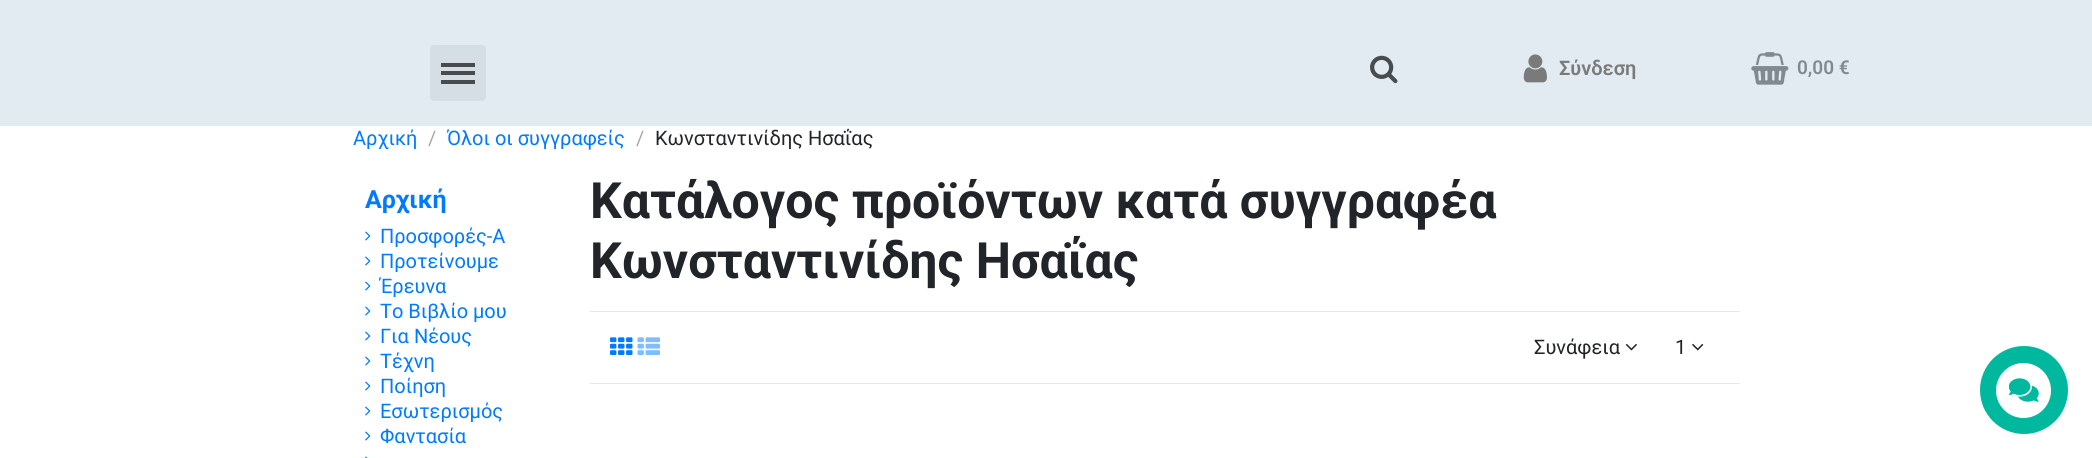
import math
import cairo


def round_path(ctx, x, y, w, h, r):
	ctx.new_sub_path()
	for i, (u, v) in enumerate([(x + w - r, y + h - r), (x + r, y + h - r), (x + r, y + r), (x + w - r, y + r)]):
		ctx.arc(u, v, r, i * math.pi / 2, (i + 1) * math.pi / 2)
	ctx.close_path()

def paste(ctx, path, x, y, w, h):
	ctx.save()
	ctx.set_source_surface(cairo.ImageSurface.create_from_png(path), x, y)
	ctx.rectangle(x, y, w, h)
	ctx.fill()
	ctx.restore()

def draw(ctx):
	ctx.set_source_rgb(1, 1, 1)
	ctx.paint()
	ctx.set_source_rgb(0.882, 0.918, 0.945)
	ctx.rectangle(0, 0, 2092, 126)
	ctx.fill()
	ctx.set_source_rgb(0.839, 0.871, 0.898)
	round_path(ctx, 430, 45, 56, 56, 4)
	ctx.fill()
	ctx.set_source_rgb(0.286, 0.298, 0.31)
	ctx.rectangle(441, 71, 34, 4)
	ctx.rectangle(441, 63, 34, 4)
	ctx.rectangle(441, 80, 34, 4)
	ctx.fill()
	paste(ctx, 'media/1.png', 1370, 55, 28, 29)
	paste(ctx, 'media/2.png', 1523, 54, 24, 29)
	ctx.select_font_face('Roboto SemiBold')
	ctx.set_font_size(20)
	ctx.set_source_rgb(0.478, 0.478, 0.478)
	ctx.move_to(1559, 75)
	ctx.show_text('Σύνδεση')
	paste(ctx, 'media/3.png', 1751, 52, 38, 33)
	ctx.set_font_size(19)
	ctx.set_source_rgb(0.506, 0.541, 0.569)
	ctx.move_to(1797, 74)
	ctx.show_text('0,00 €')
	ctx.select_font_face('Roboto')
	ctx.set_font_size(20)
	ctx.set_source_rgb(0, 0.482, 1)
	ctx.move_to(353, 145)
	ctx.show_text('Αρχική')
	ctx.set_source_rgb(0.651, 0.659, 0.663)
	ctx.move_to(428, 145)
	ctx.show_text('/')
	ctx.set_source_rgb(0, 0.482, 1)
	ctx.move_to(447, 145)
	ctx.show_text('Όλοι οι συγγραφείς')
	ctx.set_source_rgb(0.651, 0.659, 0.663)
	ctx.move_to(636, 145)
	ctx.show_text('/')
	ctx.set_source_rgb(0.129, 0.145, 0.161)
	ctx.move_to(655, 145)
	ctx.show_text('Κωνσταντινίδης Ησαΐας')
	ctx.select_font_face('Roboto', cairo.FONT_SLANT_NORMAL, cairo.FONT_WEIGHT_BOLD)
	ctx.set_font_size(25)
	ctx.set_source_rgb(0, 0.482, 1)
	ctx.move_to(365, 208)
	ctx.show_text('Αρχική')
	paste(ctx, 'media/4.png', 365, 231, 6, 10)
	ctx.select_font_face('Roboto')
	ctx.set_font_size(20)
	ctx.move_to(380, 243)
	ctx.show_text('Προσφορές-A')
	paste(ctx, 'media/4.png', 365, 256, 6, 10)
	ctx.move_to(380, 268)
	ctx.show_text('Προτείνουμε')
	paste(ctx, 'media/4.png', 365, 281, 6, 10)
	ctx.move_to(380, 293)
	ctx.show_text('Έρευνα')
	paste(ctx, 'media/4.png', 365, 306, 6, 10)
	ctx.move_to(380, 318)
	ctx.show_text('Το Βιβλίο μου')
	paste(ctx, 'media/4.png', 365, 331, 6, 10)
	ctx.move_to(380, 343)
	ctx.show_text('Για Νέους')
	paste(ctx, 'media/4.png', 365, 356, 6, 10)
	ctx.move_to(380, 368)
	ctx.show_text('Tέχνη')
	paste(ctx, 'media/4.png', 365, 381, 6, 10)
	ctx.move_to(380, 393)
	ctx.show_text('Ποίηση')
	paste(ctx, 'media/4.png', 365, 406, 6, 10)
	ctx.move_to(380, 418)
	ctx.show_text('Εσωτερισμός')
	paste(ctx, 'media/4.png', 365, 431, 6, 10)
	ctx.move_to(380, 443)
	ctx.show_text('Φαντασία')
	paste(ctx, 'media/5.png', 365, 456, 3, 2)
	ctx.select_font_face('Roboto', cairo.FONT_SLANT_NORMAL, cairo.FONT_WEIGHT_BOLD)
	ctx.set_font_size(50)
	ctx.set_source_rgb(0.129, 0.145, 0.161)
	ctx.move_to(590, 218)
	ctx.show_text('Κατάλογος προϊόντων κατά συγγραφέα')
	ctx.move_to(590, 278)
	ctx.show_text('Κωνσταντινίδης Ησαΐας')
	ctx.set_source_rgb(0.906, 0.906, 0.906)
	ctx.rectangle(590, 311, 1150, 1)
	ctx.fill()
	ctx.rectangle(590, 383, 1150, 1)
	ctx.fill()
	paste(ctx, 'media/6.png', 610, 337, 23, 18)
	paste(ctx, 'media/7.png', 637, 337, 23, 18)
	ctx.select_font_face('Roboto')
	ctx.set_font_size(20)
	ctx.set_source_rgb(0.129, 0.145, 0.161)
	ctx.move_to(1534, 354)
	ctx.show_text('Συνάφεια')
	paste(ctx, 'media/8.png', 1625, 343, 12, 8)
	ctx.move_to(1675, 354)
	ctx.show_text('1')
	paste(ctx, 'media/9.png', 1692, 343, 12, 8)
	ctx.set_source_rgb(0, 0.722, 0.62)
	ctx.arc(2024, 390, 44, 0, 2 * math.pi)
	ctx.fill()
	ctx.set_source_rgb(1, 1, 1)
	ctx.arc(2023.5, 390.5, 27.5, 0, 2 * math.pi)
	ctx.fill()
	paste(ctx, 'media/10.png', 2009, 378, 30, 24)


surface = cairo.ImageSurface(cairo.FORMAT_RGB24, 2092, 458)
ctx = cairo.Context(surface)
options = cairo.FontOptions()
options.set_hint_metrics(cairo.HINT_METRICS_OFF)
options.set_hint_style(cairo.HINT_STYLE_NONE)
ctx.set_font_options(options)
ctx.set_miter_limit(4)
draw(ctx)
surface.write_to_png('image.png')
